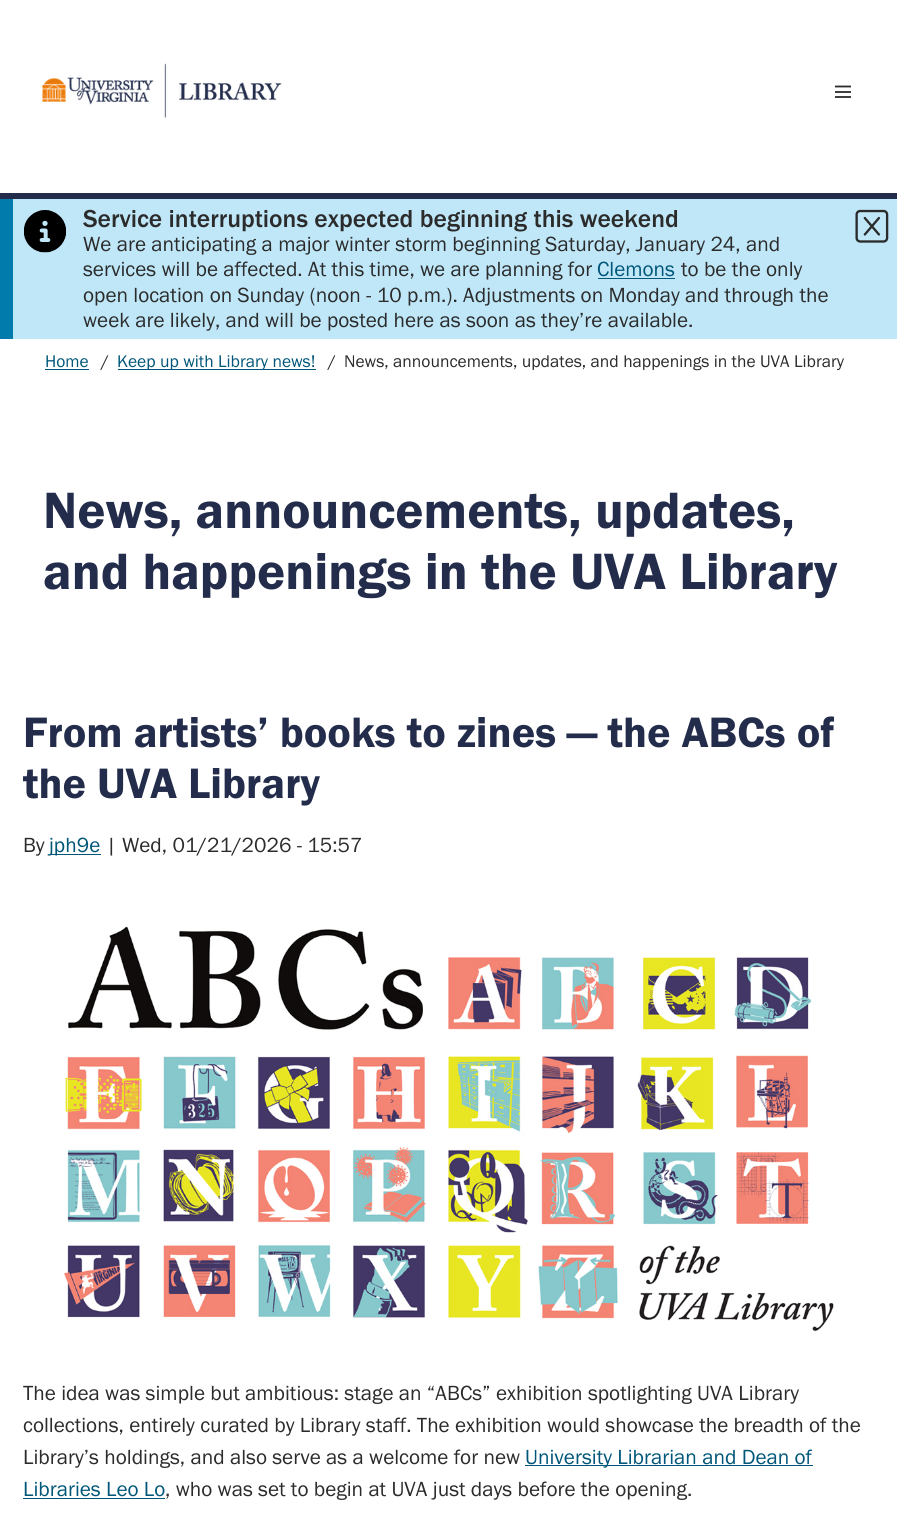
import math
import cairo


def paste(ctx, path, x, y, w, h):
	ctx.save()
	ctx.set_source_surface(cairo.ImageSurface.create_from_png(path), x, y)
	ctx.rectangle(x, y, w, h)
	ctx.fill()
	ctx.restore()

def draw(ctx):
	ctx.set_source_rgb(1, 1, 1)
	ctx.paint()
	paste(ctx, 'media/1.png', 42, 63, 240, 55)
	ctx.set_source_rgb(0.251, 0.251, 0.251)
	ctx.rectangle(835, 91, 16, 2)
	ctx.fill()
	ctx.new_path()
	ctx.move_to(835, 86.5)
	ctx.line_to(851, 86.5)
	ctx.set_source_rgb(0.169, 0.169, 0.169)
	ctx.set_line_width(1.8)
	ctx.set_line_join(cairo.LINE_JOIN_BEVEL)
	ctx.stroke()
	ctx.set_source_rgb(0.251, 0.251, 0.251)
	ctx.rectangle(835, 96, 16, 2)
	ctx.fill()
	ctx.set_source_rgb(0.137, 0.176, 0.294)
	ctx.rectangle(0, 193, 897, 6)
	ctx.fill()
	ctx.set_source_rgb(0.749, 0.906, 0.969)
	ctx.rectangle(13, 199, 884, 140)
	ctx.fill()
	ctx.set_source_rgb(0, 0.482, 0.675)
	ctx.rectangle(0, 199, 13, 140)
	ctx.fill()
	paste(ctx, 'media/2.png', 24, 210, 42, 43)
	ctx.select_font_face('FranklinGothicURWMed')
	ctx.set_font_size(25.5)
	ctx.set_source_rgb(0.169, 0.169, 0.169)
	ctx.move_to(83, 227)
	ctx.show_text('Service interruptions expected beginning this weekend')
	ctx.select_font_face('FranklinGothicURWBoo')
	ctx.set_font_size(21.25)
	ctx.move_to(83, 251)
	ctx.show_text('We are anticipating a major winter storm beginning Saturday, January 24, and')
	ctx.move_to(83, 276)
	ctx.show_text('services will be affected. At this time, we are planning for')
	ctx.set_source_rgb(0, 0.337, 0.475)
	ctx.move_to(597, 276)
	ctx.show_text('Clemons')
	ctx.rectangle(598, 278, 77, 1)
	ctx.fill()
	ctx.set_source_rgb(0.169, 0.169, 0.169)
	for x, y, s in [
		(681, 276, 'to be the only'),
		(83, 302, 'open location on Sunday (noon - 10 p.m.). Adjustments on Monday and through the'),
		(83, 327, 'week are likely, and will be posted here as soon as they’re available.'),
	]:
		ctx.move_to(x, y)
		ctx.show_text(s)
	paste(ctx, 'media/3.png', 855, 209, 34, 34)
	ctx.set_font_size(17.5)
	ctx.set_source_rgb(0, 0.337, 0.475)
	ctx.move_to(45, 367)
	ctx.show_text('Home')
	ctx.rectangle(45, 369, 44, 1)
	ctx.fill()
	ctx.set_source_rgb(0.169, 0.169, 0.169)
	ctx.move_to(101, 367)
	ctx.show_text('/')
	ctx.set_source_rgb(0, 0.337, 0.475)
	ctx.rectangle(118, 369, 198, 1)
	ctx.fill()
	ctx.move_to(117, 367)
	ctx.show_text('Keep up with Library news!')
	ctx.set_source_rgb(0.169, 0.169, 0.169)
	ctx.move_to(328, 367)
	ctx.show_text('/')
	ctx.move_to(344, 367)
	ctx.show_text('News, announcements, updates, and happenings in the UVA Library')
	ctx.select_font_face('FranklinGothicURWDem')
	ctx.set_font_size(52.9)
	ctx.set_source_rgb(0.137, 0.176, 0.294)
	ctx.move_to(43, 528)
	ctx.show_text('News, announcements, updates,')
	ctx.move_to(43, 589)
	ctx.show_text('and happenings in the UVA Library')
	ctx.set_font_size(44.1)
	ctx.move_to(23, 747)
	ctx.show_text('From artists’ books to zines — the ABCs of')
	ctx.move_to(23, 798)
	ctx.show_text('the UVA Library')
	ctx.select_font_face('FranklinGothicURWBoo')
	ctx.set_font_size(21.25)
	ctx.set_source_rgb(0.169, 0.169, 0.169)
	ctx.move_to(23, 852)
	ctx.show_text('By')
	ctx.set_source_rgb(0, 0.337, 0.475)
	ctx.rectangle(50, 854, 51, 1)
	ctx.fill()
	ctx.move_to(49, 852)
	ctx.show_text('jph9e')
	ctx.set_source_rgb(0.169, 0.169, 0.169)
	ctx.move_to(106, 852)
	ctx.show_text('| Wed, 01/21/2026 - 15:57')
	paste(ctx, 'media/4.png', 64, 926, 770, 406)
	for x, y, s in [
		(23, 1400, 'The idea was simple but ambitious: stage an “ABCs” exhibition spotlighting UVA Library'),
		(23, 1432, 'collections, entirely curated by Library staff. The exhibition would showcase the breadth of the'),
		(23, 1464, 'Library’s holdings, and also serve as a welcome for new'),
	]:
		ctx.move_to(x, y)
		ctx.show_text(s)
	ctx.set_source_rgb(0, 0.337, 0.475)
	ctx.rectangle(525, 1465, 288, 1)
	ctx.fill()
	ctx.move_to(525, 1464)
	ctx.show_text('University Librarian and Dean of')
	ctx.move_to(23, 1496)
	ctx.show_text('Libraries Leo Lo')
	ctx.rectangle(23, 1498, 142, 1)
	ctx.fill()
	ctx.set_source_rgb(0.169, 0.169, 0.169)
	ctx.move_to(165, 1496)
	ctx.show_text(', who was set to begin at UVA just days before the opening.')


surface = cairo.ImageSurface(cairo.FORMAT_RGB24, 897, 1518)
ctx = cairo.Context(surface)
options = cairo.FontOptions()
options.set_hint_metrics(cairo.HINT_METRICS_OFF)
options.set_hint_style(cairo.HINT_STYLE_NONE)
ctx.set_font_options(options)
ctx.set_miter_limit(4)
draw(ctx)
surface.write_to_png('image.png')
